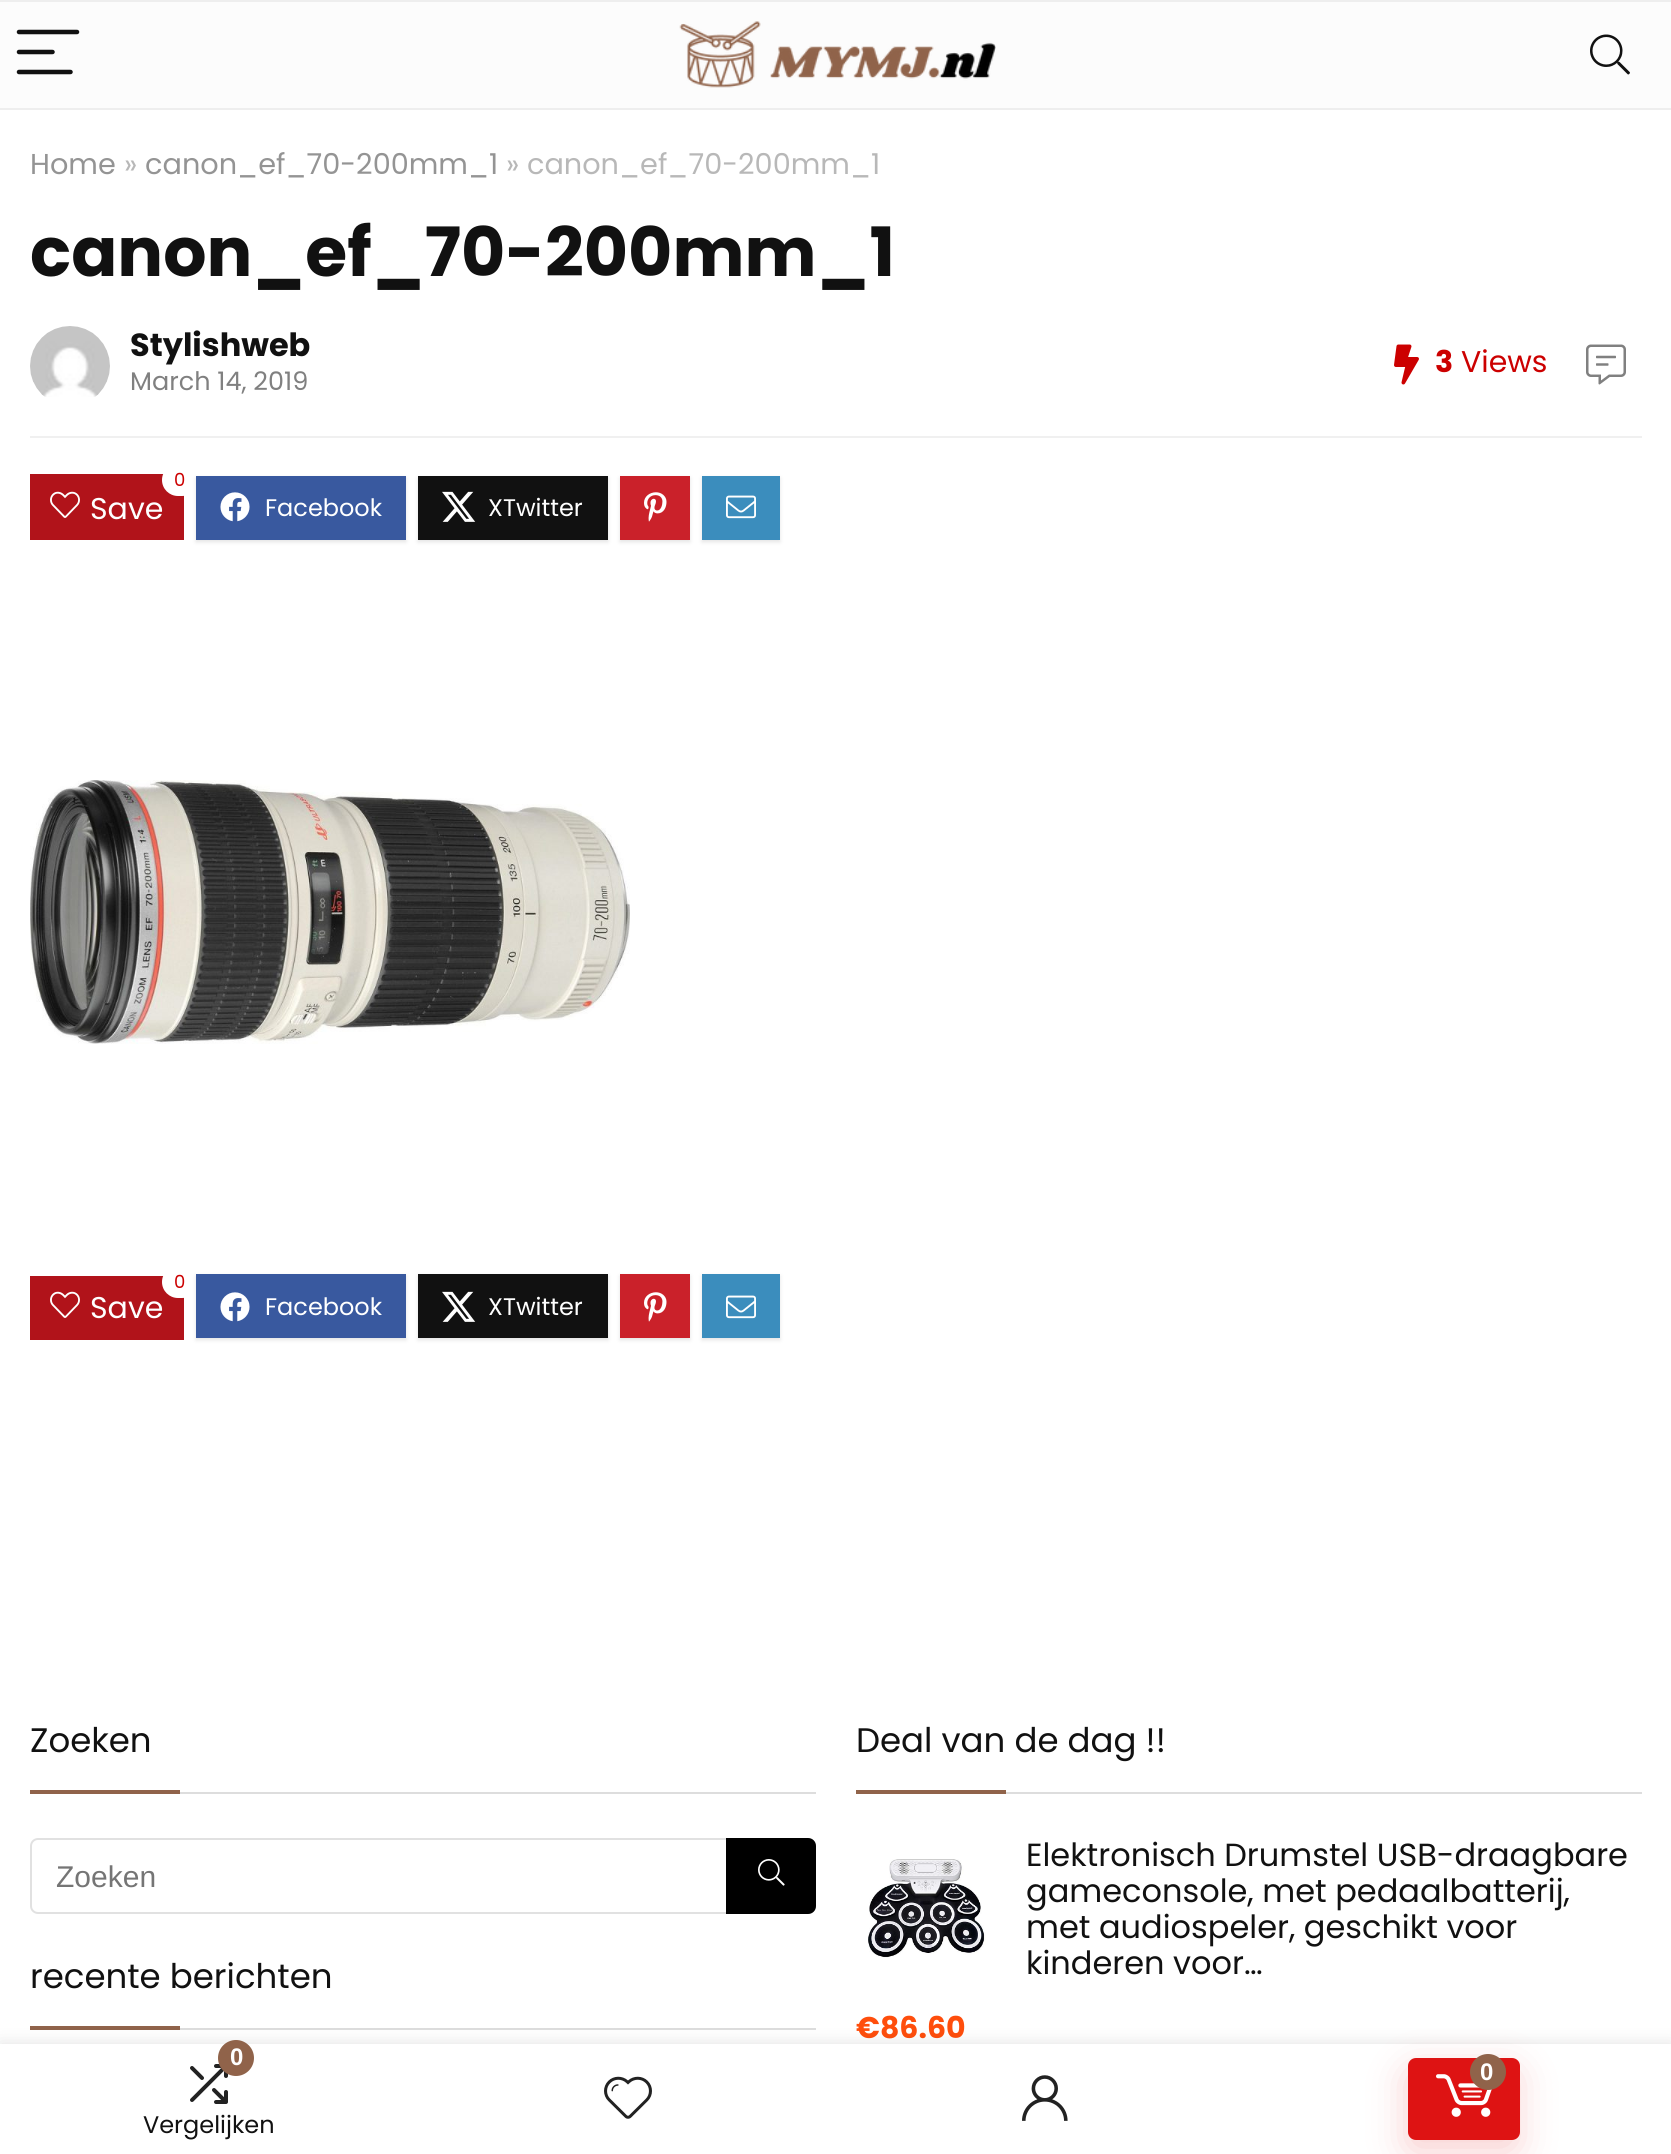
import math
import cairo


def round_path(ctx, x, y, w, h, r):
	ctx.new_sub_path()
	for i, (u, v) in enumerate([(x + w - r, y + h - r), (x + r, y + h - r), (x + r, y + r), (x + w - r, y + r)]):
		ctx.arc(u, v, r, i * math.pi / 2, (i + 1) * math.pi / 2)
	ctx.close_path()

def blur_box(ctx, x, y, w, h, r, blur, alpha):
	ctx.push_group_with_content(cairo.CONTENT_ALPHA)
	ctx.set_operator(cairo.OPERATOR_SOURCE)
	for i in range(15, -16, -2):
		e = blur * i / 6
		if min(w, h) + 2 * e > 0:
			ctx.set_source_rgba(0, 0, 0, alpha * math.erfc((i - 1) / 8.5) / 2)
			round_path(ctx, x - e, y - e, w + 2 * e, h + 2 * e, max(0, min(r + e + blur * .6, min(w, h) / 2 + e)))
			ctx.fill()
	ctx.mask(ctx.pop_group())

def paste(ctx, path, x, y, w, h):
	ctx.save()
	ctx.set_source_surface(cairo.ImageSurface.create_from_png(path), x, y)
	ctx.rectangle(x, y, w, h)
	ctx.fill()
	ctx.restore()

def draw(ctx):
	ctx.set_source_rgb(1, 1, 1)
	ctx.paint()
	ctx.select_font_face('Poppins')
	ctx.set_font_size(28.75)
	ctx.set_source_rgb(0.58, 0.58, 0.58)
	ctx.move_to(30, 174)
	ctx.show_text('Home')
	ctx.set_source_rgb(0.722, 0.722, 0.722)
	ctx.move_to(124, 174)
	ctx.show_text('»')
	ctx.set_source_rgb(0.58, 0.58, 0.58)
	ctx.move_to(145, 174)
	ctx.show_text('canon_ef_70-200mm_1')
	ctx.set_source_rgb(0.722, 0.722, 0.722)
	ctx.move_to(506, 174)
	ctx.show_text('» canon_ef_70-200mm_1')
	ctx.select_font_face('Poppins', cairo.FONT_SLANT_NORMAL, cairo.FONT_WEIGHT_BOLD)
	ctx.set_font_size(68)
	ctx.set_source_rgb(0.067, 0.067, 0.067)
	ctx.move_to(30, 276)
	ctx.show_text('canon_ef_70-200mm_1')
	ctx.set_source_rgb(0.941, 0.941, 0.941)
	ctx.rectangle(30, 436, 1612, 2)
	ctx.fill()
	paste(ctx, 'media/1.png', 30, 326, 80, 71)
	ctx.set_font_size(32)
	ctx.set_source_rgb(0.067, 0.067, 0.067)
	ctx.move_to(130, 356)
	ctx.show_text('Stylishweb')
	ctx.select_font_face('Poppins')
	ctx.set_font_size(25.5)
	ctx.set_source_rgb(0.502, 0.502, 0.502)
	ctx.move_to(130, 390)
	ctx.show_text('March 14, 2019')
	paste(ctx, 'media/2.png', 1394, 344, 25, 41)
	ctx.select_font_face('Poppins', cairo.FONT_SLANT_NORMAL, cairo.FONT_WEIGHT_BOLD)
	ctx.set_font_size(30)
	ctx.set_source_rgb(0.8, 0, 0)
	ctx.move_to(1435, 372)
	ctx.show_text('3')
	ctx.select_font_face('Poppins')
	ctx.move_to(1461, 372)
	ctx.show_text('Views')
	paste(ctx, 'media/3.png', 1586, 344, 40, 41)
	ctx.set_source_rgb(0.694, 0.078, 0.102)
	ctx.rectangle(30, 474, 154, 66)
	ctx.fill()
	ctx.save()
	ctx.rectangle(30, 468, 1612, 84)
	ctx.clip()
	ctx.set_source_rgb(1, 1, 1)
	round_path(ctx, 162, 464, 36, 32, 16)
	ctx.fill()
	ctx.restore()
	ctx.set_font_size(18)
	ctx.set_source_rgb(0.8, 0, 0)
	ctx.move_to(174, 486)
	ctx.show_text('0')
	paste(ctx, 'media/4.png', 50, 491, 30, 27)
	ctx.set_font_size(30)
	ctx.set_source_rgb(1, 1, 1)
	ctx.move_to(90, 519)
	ctx.show_text('Save')
	ctx.set_source_rgb(0.894, 0.894, 0.894)
	blur_box(ctx, 196, 478, 210, 64, 0, 2, 1)
	ctx.set_source_rgb(0.224, 0.349, 0.624)
	ctx.rectangle(196, 476, 210, 64)
	ctx.fill()
	paste(ctx, 'media/5.png', 220, 492, 30, 30)
	ctx.set_font_size(24)
	ctx.set_source_rgb(1, 1, 1)
	ctx.move_to(265, 516)
	ctx.show_text('Facebook')
	ctx.set_source_rgb(0.894, 0.894, 0.894)
	blur_box(ctx, 418, 478, 190, 64, 0, 2, 1)
	ctx.set_source_rgb(0.067, 0.067, 0.067)
	ctx.rectangle(418, 476, 190, 64)
	ctx.fill()
	paste(ctx, 'media/6.png', 442, 491, 34, 31)
	ctx.set_source_rgb(1, 1, 1)
	ctx.move_to(488, 516)
	ctx.show_text('XTwitter')
	ctx.set_source_rgb(0.894, 0.894, 0.894)
	blur_box(ctx, 620, 478, 70, 64, 0, 2, 1)
	ctx.set_source_rgb(0.792, 0.129, 0.165)
	ctx.rectangle(620, 476, 70, 64)
	ctx.fill()
	paste(ctx, 'media/7.png', 644, 492, 23, 30)
	ctx.set_source_rgb(0.894, 0.894, 0.894)
	blur_box(ctx, 702, 478, 78, 64, 0, 2, 1)
	ctx.set_source_rgb(0.231, 0.553, 0.741)
	ctx.rectangle(702, 476, 78, 64)
	ctx.fill()
	paste(ctx, 'media/8.png', 726, 495, 30, 24)
	paste(ctx, 'media/9.png', 30, 780, 600, 264)
	ctx.set_source_rgb(0.694, 0.078, 0.102)
	ctx.rectangle(30, 1276, 154, 64)
	ctx.fill()
	ctx.set_source_rgb(1, 1, 1)
	round_path(ctx, 162, 1266, 36, 32, 16)
	ctx.fill()
	ctx.set_font_size(18)
	ctx.set_source_rgb(0.8, 0, 0)
	ctx.move_to(174, 1288)
	ctx.show_text('0')
	paste(ctx, 'media/4.png', 50, 1291, 30, 27)
	ctx.set_font_size(30)
	ctx.set_source_rgb(1, 1, 1)
	ctx.move_to(90, 1318)
	ctx.show_text('Save')
	ctx.set_source_rgb(0.894, 0.894, 0.894)
	blur_box(ctx, 196, 1276, 210, 64, 0, 2, 1)
	ctx.set_source_rgb(0.224, 0.349, 0.624)
	ctx.rectangle(196, 1274, 210, 64)
	ctx.fill()
	paste(ctx, 'media/5.png', 220, 1292, 30, 30)
	ctx.set_font_size(24)
	ctx.set_source_rgb(1, 1, 1)
	ctx.move_to(265, 1315)
	ctx.show_text('Facebook')
	ctx.set_source_rgb(0.894, 0.894, 0.894)
	blur_box(ctx, 418, 1276, 190, 64, 0, 2, 1)
	ctx.set_source_rgb(0.067, 0.067, 0.067)
	ctx.rectangle(418, 1274, 190, 64)
	ctx.fill()
	paste(ctx, 'media/6.png', 442, 1291, 34, 31)
	ctx.set_source_rgb(1, 1, 1)
	ctx.move_to(488, 1315)
	ctx.show_text('XTwitter')
	ctx.set_source_rgb(0.894, 0.894, 0.894)
	blur_box(ctx, 620, 1276, 70, 64, 0, 2, 1)
	ctx.set_source_rgb(0.792, 0.129, 0.165)
	ctx.rectangle(620, 1274, 70, 64)
	ctx.fill()
	paste(ctx, 'media/7.png', 644, 1292, 23, 30)
	ctx.set_source_rgb(0.894, 0.894, 0.894)
	blur_box(ctx, 702, 1276, 78, 64, 0, 2, 1)
	ctx.set_source_rgb(0.231, 0.553, 0.741)
	ctx.rectangle(702, 1274, 78, 64)
	ctx.fill()
	paste(ctx, 'media/8.png', 726, 1295, 30, 24)
	ctx.set_source_rgb(0.867, 0.867, 0.867)
	ctx.rectangle(180, 1792, 636, 2)
	ctx.fill()
	ctx.set_font_size(34)
	ctx.set_source_rgb(0.067, 0.067, 0.067)
	ctx.move_to(30, 1752)
	ctx.show_text('Zoeken')
	ctx.set_source_rgb(0.565, 0.388, 0.29)
	ctx.rectangle(30, 1790, 150, 4)
	ctx.fill()
	round_path(ctx, 31, 1839, 784, 74, 7)
	ctx.set_source_rgb(0.882, 0.882, 0.882)
	ctx.stroke()
	ctx.select_font_face('Liberation Sans')
	ctx.set_font_size(30)
	ctx.set_source_rgb(0.459, 0.459, 0.459)
	ctx.move_to(56, 1887)
	ctx.show_text('Zoeken')
	ctx.set_source_rgb(0, 0, 0)
	ctx.new_path()
	ctx.move_to(726, 1838)
	ctx.line_to(808, 1838)
	ctx.curve_to(812.5, 1838, 816, 1841.5, 816, 1846)
	ctx.line_to(816, 1906)
	ctx.curve_to(816, 1910.5, 812.5, 1914, 808, 1914)
	ctx.line_to(726, 1914)
	ctx.close_path()
	ctx.fill()
	paste(ctx, 'media/10.png', 758, 1859, 27, 27)
	ctx.set_source_rgb(0.867, 0.867, 0.867)
	ctx.rectangle(1006, 1792, 636, 2)
	ctx.fill()
	ctx.select_font_face('Poppins')
	ctx.set_font_size(34)
	ctx.set_source_rgb(0.067, 0.067, 0.067)
	ctx.move_to(856, 1752)
	ctx.show_text('Deal van de dag !!')
	ctx.set_source_rgb(0.565, 0.388, 0.29)
	ctx.rectangle(856, 1790, 150, 4)
	ctx.fill()
	paste(ctx, 'media/11.png', 868, 1859, 118, 99)
	ctx.set_font_size(32)
	ctx.set_source_rgb(0.067, 0.067, 0.067)
	for x, y, s in [
		(1026, 1866, 'Elektronisch Drumstel USB-draagbare'),
		(1026, 1902, 'gameconsole, met pedaalbatterij,'),
		(1026, 1938, 'met audiospeler, geschikt voor'),
		(1026, 1974, 'kinderen voor…'),
	]:
		ctx.move_to(x, y)
		ctx.show_text(s)
	ctx.select_font_face('Poppins', cairo.FONT_SLANT_NORMAL, cairo.FONT_WEIGHT_BOLD)
	ctx.set_font_size(30)
	ctx.set_source_rgb(1, 0.306, 0.047)
	ctx.move_to(856, 2038)
	ctx.show_text('€86.60')
	ctx.set_source_rgb(0.867, 0.867, 0.867)
	ctx.rectangle(180, 2028, 636, 2)
	ctx.fill()
	ctx.select_font_face('Poppins')
	ctx.set_font_size(34)
	ctx.set_source_rgb(0.067, 0.067, 0.067)
	ctx.move_to(30, 1988)
	ctx.show_text('recente berichten')
	ctx.set_source_rgb(0.565, 0.388, 0.29)
	ctx.rectangle(30, 2026, 150, 4)
	ctx.fill()
	ctx.set_source_rgb(0.988, 0.988, 0.988)
	ctx.rectangle(0, 2, 1671, 106)
	ctx.fill()
	ctx.set_source_rgb(0.933, 0.933, 0.933)
	ctx.rectangle(0, 0, 1671, 2)
	ctx.rectangle(0, 108, 1671, 2)
	ctx.fill()
	ctx.new_path()
	ctx.move_to(19, 32)
	ctx.line_to(77, 32)
	ctx.set_source_rgb(0.067, 0.067, 0.067)
	ctx.set_line_width(4.5)
	ctx.set_line_cap(cairo.LINE_CAP_ROUND)
	ctx.stroke()
	ctx.new_path()
	ctx.move_to(19, 52)
	ctx.line_to(52.5, 52)
	ctx.move_to(19, 72)
	ctx.line_to(70.5, 72)
	ctx.stroke()
	paste(ctx, 'media/12.png', 679, 21, 317, 67)
	paste(ctx, 'media/13.png', 1590, 34, 40, 41)
	ctx.set_source_rgb(0, 0, 0)
	blur_box(ctx, 0, 2044, 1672, 110, 0, 9, 0.12)
	ctx.set_source_rgb(1, 1, 1)
	ctx.rectangle(0, 2044, 1671, 110)
	ctx.fill()
	paste(ctx, 'media/14.png', 190, 2064, 38, 40)
	ctx.set_source_rgb(0.565, 0.388, 0.29)
	ctx.arc(236, 2058, 18, 0, 2 * math.pi)
	ctx.fill()
	ctx.select_font_face('Liberation Sans', cairo.FONT_SLANT_NORMAL, cairo.FONT_WEIGHT_BOLD)
	ctx.set_font_size(24)
	ctx.set_source_rgb(1, 1, 1)
	ctx.move_to(230, 2065)
	ctx.show_text('0')
	ctx.select_font_face('Poppins')
	ctx.set_source_rgb(0.067, 0.067, 0.067)
	ctx.move_to(143, 2133)
	ctx.show_text('Vergelijken')
	ctx.set_source_rgb(0.871, 0.078, 0.078)
	blur_box(ctx, 1406, 2070, 112, 82, 8, 19, 0.2)
	ctx.set_source_rgb(0.871, 0.078, 0.078)
	round_path(ctx, 1408, 2058, 112, 82, 8)
	ctx.fill()
	paste(ctx, 'media/15.png', 1436, 2074, 56, 43)
	ctx.set_source_rgb(0.565, 0.388, 0.29)
	ctx.arc(1488, 2072, 18, 0, 2 * math.pi)
	ctx.fill()
	ctx.select_font_face('Liberation Sans', cairo.FONT_SLANT_NORMAL, cairo.FONT_WEIGHT_BOLD)
	ctx.set_source_rgb(1, 1, 1)
	ctx.move_to(1480, 2080)
	ctx.show_text('0')
	paste(ctx, 'media/16.png', 604, 2076, 48, 43)
	paste(ctx, 'media/17.png', 1022, 2075, 46, 46)


surface = cairo.ImageSurface(cairo.FORMAT_RGB24, 1671, 2154)
ctx = cairo.Context(surface)
options = cairo.FontOptions()
options.set_hint_metrics(cairo.HINT_METRICS_OFF)
options.set_hint_style(cairo.HINT_STYLE_NONE)
ctx.set_font_options(options)
ctx.set_miter_limit(4)
draw(ctx)
surface.write_to_png('image.png')
